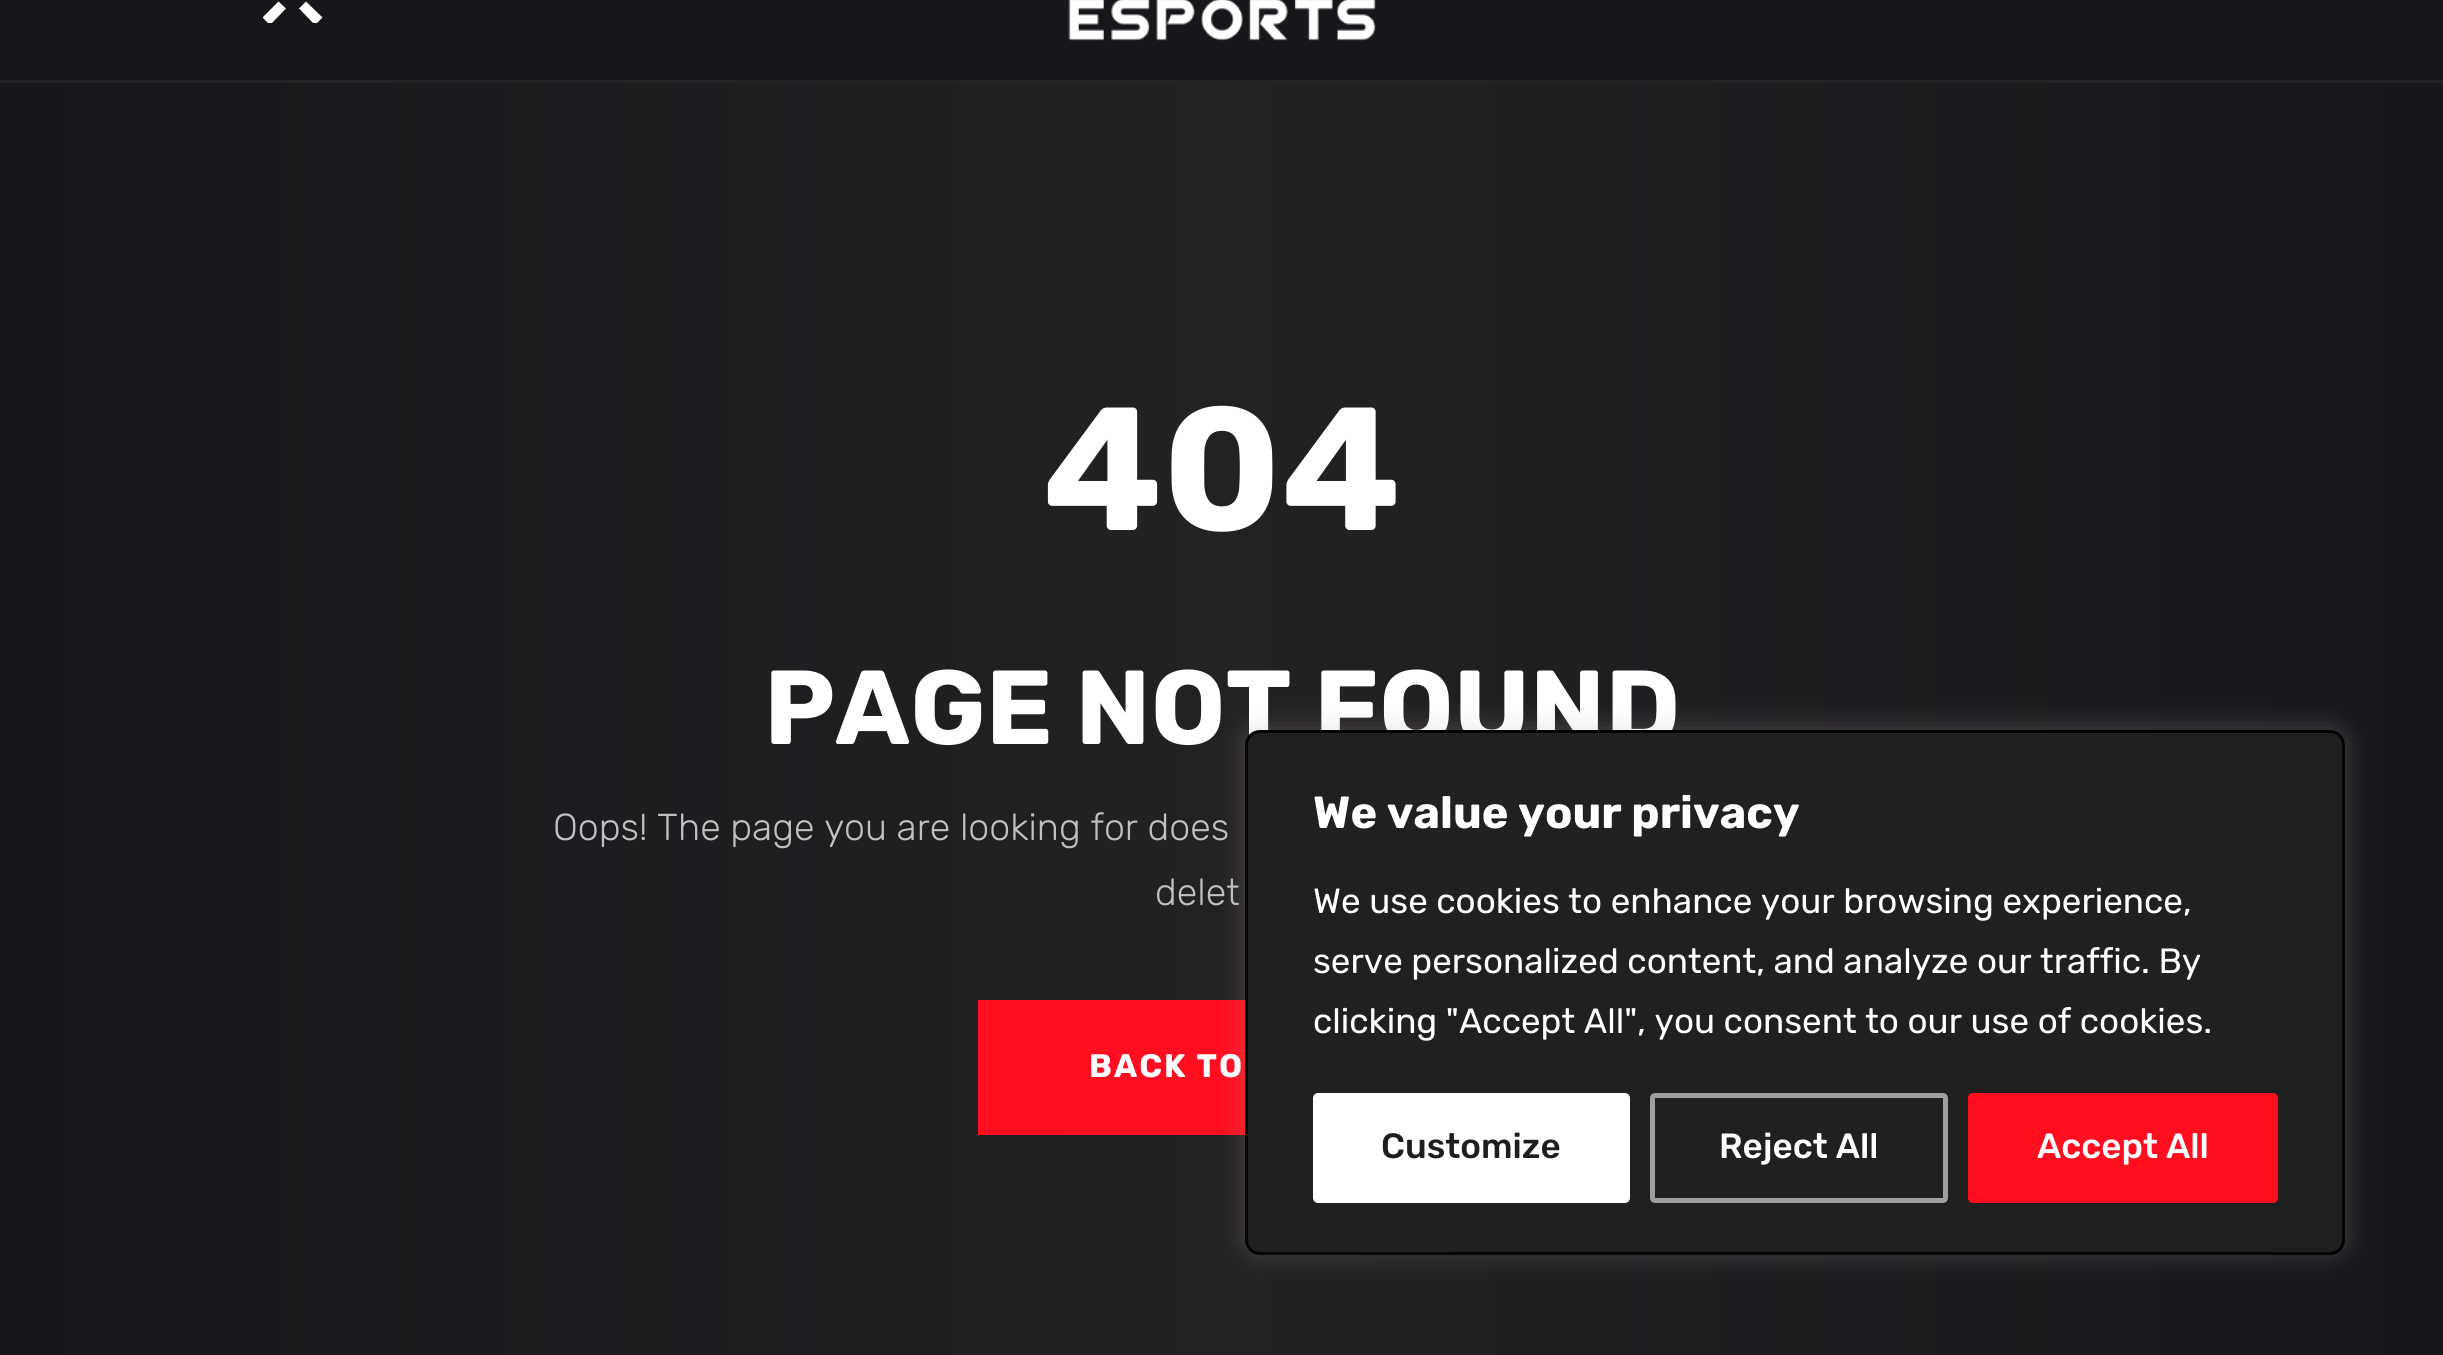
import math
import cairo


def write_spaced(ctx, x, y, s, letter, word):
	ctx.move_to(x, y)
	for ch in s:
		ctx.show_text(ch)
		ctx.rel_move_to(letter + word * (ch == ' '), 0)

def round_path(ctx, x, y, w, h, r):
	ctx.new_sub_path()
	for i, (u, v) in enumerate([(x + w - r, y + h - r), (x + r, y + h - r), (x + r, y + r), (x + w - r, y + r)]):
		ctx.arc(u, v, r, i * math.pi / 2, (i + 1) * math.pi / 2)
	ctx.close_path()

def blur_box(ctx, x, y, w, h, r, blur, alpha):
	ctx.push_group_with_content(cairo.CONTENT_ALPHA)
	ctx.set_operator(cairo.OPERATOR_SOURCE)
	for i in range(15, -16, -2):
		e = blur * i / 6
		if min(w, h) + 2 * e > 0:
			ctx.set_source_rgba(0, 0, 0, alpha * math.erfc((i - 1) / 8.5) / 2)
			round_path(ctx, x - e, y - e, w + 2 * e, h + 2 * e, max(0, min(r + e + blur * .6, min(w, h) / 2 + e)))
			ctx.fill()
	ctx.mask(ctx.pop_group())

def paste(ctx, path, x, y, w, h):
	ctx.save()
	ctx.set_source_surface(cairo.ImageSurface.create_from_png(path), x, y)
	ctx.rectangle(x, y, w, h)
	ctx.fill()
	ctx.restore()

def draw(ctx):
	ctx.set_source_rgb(1, 1, 1)
	ctx.paint()
	ctx.set_source_rgb(0.09, 0.086, 0.102)
	ctx.rectangle(0, 0, 2443, 80)
	ctx.fill()
	ctx.set_source_rgb(0.137, 0.133, 0.145)
	ctx.rectangle(0, 80, 2443, 3)
	ctx.fill()
	ctx.save()
	ctx.rectangle(263, 0, 60, 23)
	ctx.clip()
	ctx.set_source_rgb(1, 1, 1)
	ctx.new_path()
	ctx.move_to(278.5, 1.5)
	ctx.line_to(286, 8.5)
	ctx.line_to(270, 25)
	ctx.line_to(262.5, 17.5)
	ctx.close_path()
	ctx.move_to(322.5, 17.5)
	ctx.line_to(315, 25)
	ctx.line_to(299, 8.5)
	ctx.line_to(306, 1.5)
	ctx.close_path()
	ctx.fill()
	ctx.restore()
	paste(ctx, 'media/1.png', 1068, 0, 308, 41)
	gradient = cairo.LinearGradient(0, 671, 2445, 671)
	gradient.add_color_stop_rgba(0, 0.09, 0.086, 0.102, 1)
	gradient.add_color_stop_rgba(0.5, 0.141, 0.129, 0.141, 1)
	gradient.add_color_stop_rgba(1, 0.09, 0.086, 0.102, 1)
	ctx.set_source(gradient)
	ctx.rectangle(0, 83, 2443, 1272)
	ctx.fill()
	ctx.select_font_face('Rubik', cairo.FONT_SLANT_NORMAL, cairo.FONT_WEIGHT_BOLD)
	ctx.set_font_size(175)
	ctx.set_source_rgb(1, 1, 1)
	ctx.move_to(1043, 530)
	ctx.show_text('404')
	ctx.set_font_size(105)
	ctx.move_to(764, 744)
	ctx.show_text('PAGE NOT FOUND')
	ctx.select_font_face('Rubik Light')
	ctx.set_font_size(37.5)
	ctx.set_source_rgb(0.753, 0.753, 0.753)
	ctx.move_to(553, 840)
	ctx.show_text('Oops! The page you are looking for does')
	ctx.move_to(1155, 905)
	ctx.show_text('delet')
	ctx.set_source_rgb(1, 0.055, 0.122)
	ctx.rectangle(978, 1000, 267, 135)
	ctx.fill()
	ctx.select_font_face('Rubik', cairo.FONT_SLANT_NORMAL, cairo.FONT_WEIGHT_BOLD)
	ctx.set_font_size(32.5)
	ctx.set_source_rgb(1, 1, 1)
	write_spaced(ctx, 1089, 1077, 'BACK TO', 2, 0)
	ctx.set_source_rgb(0.675, 0.671, 0.671)
	blur_box(ctx, 1245, 728, 1100, 525, 15, 12.5, 0.3)
	ctx.set_source_rgb(0.125, 0.125, 0.125)
	round_path(ctx, 1246.5, 731.5, 1097, 522, 13.5)
	ctx.fill_preserve()
	ctx.set_source_rgb(0.012, 0.012, 0.012)
	ctx.set_line_width(3)
	ctx.stroke()
	ctx.set_font_size(45)
	ctx.set_source_rgb(1, 1, 1)
	ctx.move_to(1313, 828)
	ctx.show_text('We value your privacy')
	ctx.select_font_face('Rubik')
	ctx.set_font_size(35)
	for x, y, s in [
		(1313, 913, 'We use cookies to enhance your browsing experience,'),
		(1313, 973, 'serve personalized content, and analyze our traffic. By'),
		(1313, 1033, 'clicking "Accept All", you consent to our use of cookies.'),
	]:
		ctx.move_to(x, y)
		ctx.show_text(s)
	round_path(ctx, 1315.5, 1095.5, 312, 105, 2.5)
	ctx.fill_preserve()
	ctx.set_line_width(5)
	ctx.stroke()
	ctx.select_font_face('Rubik Medium')
	ctx.set_source_rgb(0.118, 0.118, 0.118)
	ctx.move_to(1381, 1158)
	ctx.show_text('Customize')
	round_path(ctx, 1652.5, 1095.5, 293, 105, 2.5)
	ctx.set_source_rgb(0.624, 0.624, 0.624)
	ctx.stroke()
	ctx.set_source_rgb(1, 1, 1)
	ctx.move_to(1719, 1158)
	ctx.show_text('Reject All')
	ctx.set_source_rgb(1, 0.055, 0.122)
	round_path(ctx, 1970.5, 1095.5, 305, 105, 2.5)
	ctx.fill_preserve()
	ctx.stroke()
	ctx.set_source_rgb(1, 1, 1)
	ctx.move_to(2037, 1158)
	ctx.show_text('Accept All')


surface = cairo.ImageSurface(cairo.FORMAT_RGB24, 2443, 1355)
ctx = cairo.Context(surface)
options = cairo.FontOptions()
options.set_hint_metrics(cairo.HINT_METRICS_OFF)
options.set_hint_style(cairo.HINT_STYLE_NONE)
ctx.set_font_options(options)
ctx.set_miter_limit(4)
draw(ctx)
surface.write_to_png('image.png')
